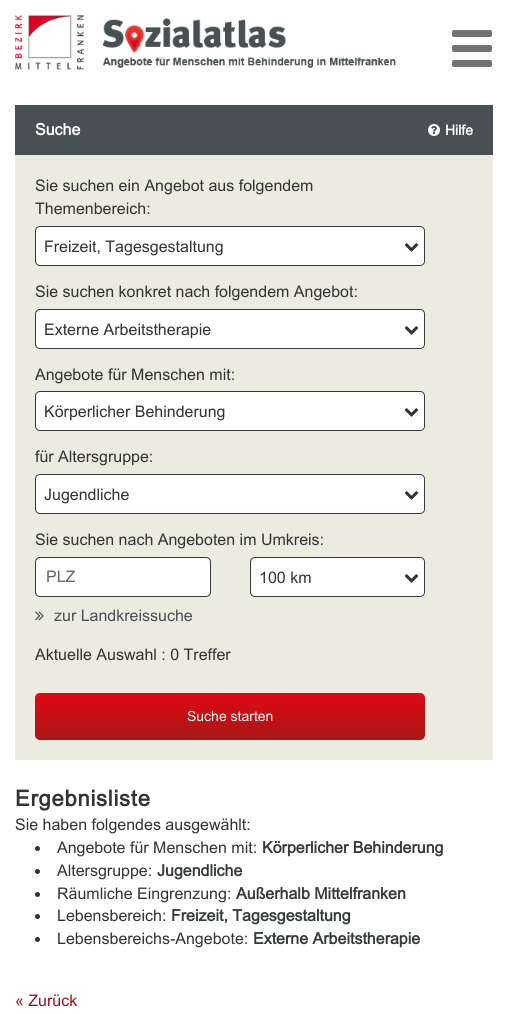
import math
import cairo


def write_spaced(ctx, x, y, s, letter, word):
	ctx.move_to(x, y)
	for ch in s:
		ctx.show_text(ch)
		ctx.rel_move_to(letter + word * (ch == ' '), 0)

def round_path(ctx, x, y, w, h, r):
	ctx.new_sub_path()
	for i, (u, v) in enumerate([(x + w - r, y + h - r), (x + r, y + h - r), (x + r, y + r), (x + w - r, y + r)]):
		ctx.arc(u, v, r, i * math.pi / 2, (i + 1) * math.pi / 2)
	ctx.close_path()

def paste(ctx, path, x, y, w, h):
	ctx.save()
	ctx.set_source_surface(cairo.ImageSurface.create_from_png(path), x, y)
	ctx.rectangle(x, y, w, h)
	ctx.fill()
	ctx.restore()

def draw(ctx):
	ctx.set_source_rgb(1, 1, 1)
	ctx.paint()
	paste(ctx, 'media/1.png', 15, 15, 69, 55)
	paste(ctx, 'media/2.png', 102, 18, 294, 50)
	ctx.set_source_rgb(0.451, 0.451, 0.451)
	round_path(ctx, 452, 30, 40, 7, 2)
	ctx.fill()
	round_path(ctx, 452, 45, 40, 7, 2)
	ctx.fill()
	round_path(ctx, 452, 60, 40, 7, 2)
	ctx.fill()
	ctx.set_source_rgb(0.922, 0.918, 0.875)
	ctx.rectangle(15, 155, 478, 605)
	ctx.fill()
	ctx.set_source_rgb(0.282, 0.314, 0.329)
	ctx.rectangle(15, 105, 478, 50)
	ctx.fill()
	ctx.select_font_face('Arial', cairo.FONT_SLANT_NORMAL, cairo.FONT_WEIGHT_BOLD)
	ctx.set_font_size(16)
	ctx.set_source_rgb(1, 1, 1)
	ctx.move_to(35, 135)
	ctx.show_text('Suche')
	paste(ctx, 'media/3.png', 428, 124, 12, 12)
	ctx.set_font_size(14)
	ctx.move_to(445, 135)
	ctx.show_text('Hilfe')
	ctx.select_font_face('Arial')
	ctx.set_font_size(16)
	ctx.set_source_rgb(0.2, 0.2, 0.2)
	ctx.move_to(35, 191)
	ctx.show_text('Sie suchen ein Angebot aus folgendem')
	ctx.move_to(35, 214)
	ctx.show_text('Themenbereich:')
	ctx.set_source_rgb(1, 1, 1)
	round_path(ctx, 35.5, 226.5, 389, 39, 4.5)
	ctx.fill_preserve()
	ctx.set_source_rgb(0.204, 0.224, 0.235)
	ctx.set_line_width(1)
	ctx.stroke()
	ctx.set_source_rgb(0.2, 0.2, 0.2)
	ctx.move_to(44, 252)
	ctx.show_text('Freizeit, Tagesgestaltung')
	ctx.set_source_rgb(1, 1, 1)
	ctx.new_path()
	ctx.move_to(404, 227)
	ctx.line_to(419, 227)
	ctx.curve_to(422, 227, 424, 229, 424, 232)
	ctx.line_to(424, 260)
	ctx.curve_to(424, 263, 422, 265, 419, 265)
	ctx.line_to(404, 265)
	ctx.close_path()
	ctx.fill()
	paste(ctx, 'media/4.png', 404, 243, 15, 9)
	ctx.set_source_rgb(0.2, 0.2, 0.2)
	ctx.move_to(35, 297)
	ctx.show_text('Sie suchen konkret nach folgendem Angebot:')
	ctx.set_source_rgb(1, 1, 1)
	round_path(ctx, 35.5, 309.5, 389, 39, 4.5)
	ctx.fill_preserve()
	ctx.set_source_rgb(0.204, 0.224, 0.235)
	ctx.stroke()
	ctx.set_source_rgb(0.2, 0.2, 0.2)
	ctx.move_to(44, 335)
	ctx.show_text('Externe Arbeitstherapie')
	ctx.set_source_rgb(1, 1, 1)
	ctx.new_path()
	ctx.move_to(404, 310)
	ctx.line_to(419, 310)
	ctx.curve_to(422, 310, 424, 312, 424, 315)
	ctx.line_to(424, 343)
	ctx.curve_to(424, 346, 422, 348, 419, 348)
	ctx.line_to(404, 348)
	ctx.close_path()
	ctx.fill()
	paste(ctx, 'media/4.png', 404, 326, 15, 9)
	ctx.set_source_rgb(0.2, 0.2, 0.2)
	ctx.move_to(35, 380)
	ctx.show_text('Angebote für Menschen mit:')
	ctx.set_source_rgb(1, 1, 1)
	round_path(ctx, 35.5, 391.5, 389, 39, 4.5)
	ctx.fill_preserve()
	ctx.set_source_rgb(0.204, 0.224, 0.235)
	ctx.stroke()
	ctx.set_source_rgb(0.2, 0.2, 0.2)
	ctx.move_to(44, 417)
	ctx.show_text('Körperlicher Behinderung')
	ctx.set_source_rgb(1, 1, 1)
	ctx.new_path()
	ctx.move_to(404, 392)
	ctx.line_to(419, 392)
	ctx.curve_to(422, 392, 424, 394, 424, 397)
	ctx.line_to(424, 425)
	ctx.curve_to(424, 428, 422, 430, 419, 430)
	ctx.line_to(404, 430)
	ctx.close_path()
	ctx.fill()
	paste(ctx, 'media/4.png', 404, 408, 15, 9)
	ctx.set_source_rgb(0.2, 0.2, 0.2)
	ctx.move_to(35, 462)
	ctx.show_text('für Altersgruppe:')
	ctx.set_source_rgb(1, 1, 1)
	round_path(ctx, 35.5, 474.5, 389, 39, 4.5)
	ctx.fill_preserve()
	ctx.set_source_rgb(0.204, 0.224, 0.235)
	ctx.stroke()
	ctx.set_source_rgb(0.2, 0.2, 0.2)
	ctx.move_to(44, 500)
	ctx.show_text('Jugendliche')
	ctx.set_source_rgb(1, 1, 1)
	ctx.new_path()
	ctx.move_to(404, 475)
	ctx.line_to(419, 475)
	ctx.curve_to(422, 475, 424, 477, 424, 480)
	ctx.line_to(424, 508)
	ctx.curve_to(424, 511, 422, 513, 419, 513)
	ctx.line_to(404, 513)
	ctx.close_path()
	ctx.fill()
	paste(ctx, 'media/4.png', 404, 491, 15, 9)
	ctx.set_source_rgb(0.2, 0.2, 0.2)
	ctx.move_to(35, 545)
	ctx.show_text('Sie suchen nach Angeboten im Umkreis:')
	ctx.set_source_rgb(1, 1, 1)
	round_path(ctx, 35.5, 557.5, 175, 39, 4.5)
	ctx.fill_preserve()
	ctx.set_source_rgb(0.204, 0.224, 0.235)
	ctx.stroke()
	ctx.set_source_rgb(0.4, 0.4, 0.4)
	ctx.move_to(46, 582)
	ctx.show_text('PLZ')
	ctx.set_source_rgb(1, 1, 1)
	round_path(ctx, 250.5, 557.5, 174, 39, 4.5)
	ctx.fill_preserve()
	ctx.set_source_rgb(0.204, 0.224, 0.235)
	ctx.stroke()
	ctx.set_source_rgb(0.2, 0.2, 0.2)
	ctx.move_to(259, 583)
	ctx.show_text('100 km')
	ctx.set_source_rgb(1, 1, 1)
	ctx.new_path()
	ctx.move_to(404, 558)
	ctx.line_to(419, 558)
	ctx.curve_to(422, 558, 424, 560, 424, 563)
	ctx.line_to(424, 591)
	ctx.curve_to(424, 594, 422, 596, 419, 596)
	ctx.line_to(404, 596)
	ctx.close_path()
	ctx.fill()
	paste(ctx, 'media/4.png', 404, 574, 15, 9)
	paste(ctx, 'media/5.png', 35, 611, 9, 10)
	ctx.set_source_rgb(0.282, 0.314, 0.329)
	ctx.move_to(54, 621)
	ctx.show_text('zur Landkreissuche')
	ctx.set_source_rgb(0.2, 0.2, 0.2)
	ctx.move_to(35, 660)
	ctx.show_text('Aktuelle Auswahl : 0 Treffer')
	gradient = cairo.LinearGradient(230, 740, 230, 693)
	gradient.add_color_stop_rgba(0, 0.651, 0.094, 0.082, 1)
	gradient.add_color_stop_rgba(1, 0.878, 0.031, 0.078, 1)
	ctx.set_source(gradient)
	round_path(ctx, 35, 693, 390, 47, 5)
	ctx.fill()
	ctx.set_font_size(14)
	ctx.set_source_rgb(1, 1, 1)
	ctx.move_to(187, 721)
	ctx.show_text('Suche starten')
	ctx.select_font_face('Arial', cairo.FONT_SLANT_NORMAL, cairo.FONT_WEIGHT_BOLD)
	ctx.set_font_size(22)
	ctx.set_source_rgb(0.2, 0.2, 0.2)
	write_spaced(ctx, 15, 806, 'Ergebnisliste', 0.75, 0)
	ctx.select_font_face('Arial')
	ctx.set_font_size(16)
	ctx.move_to(15, 830)
	ctx.show_text('Sie haben folgendes ausgewählt:')
	ctx.new_path()
	ctx.arc(37.5, 848.5, 2.5, 0, 2 * math.pi)
	ctx.fill()
	ctx.move_to(57, 853)
	ctx.show_text('Angebote für Menschen mit:')
	ctx.select_font_face('Arial', cairo.FONT_SLANT_NORMAL, cairo.FONT_WEIGHT_BOLD)
	ctx.set_source_rgb(0.204, 0.224, 0.235)
	ctx.move_to(262, 853)
	ctx.show_text('Körperlicher Behinderung')
	ctx.set_source_rgb(0.2, 0.2, 0.2)
	ctx.new_path()
	ctx.arc(37.5, 871.5, 2.5, 0, 2 * math.pi)
	ctx.fill()
	ctx.select_font_face('Arial')
	ctx.move_to(57, 876)
	ctx.show_text('Altersgruppe:')
	ctx.select_font_face('Arial', cairo.FONT_SLANT_NORMAL, cairo.FONT_WEIGHT_BOLD)
	ctx.set_source_rgb(0.204, 0.224, 0.235)
	ctx.move_to(157, 876)
	ctx.show_text('Jugendliche')
	ctx.set_source_rgb(0.2, 0.2, 0.2)
	ctx.new_path()
	ctx.arc(37.5, 894.5, 2.5, 0, 2 * math.pi)
	ctx.fill()
	ctx.select_font_face('Arial')
	ctx.move_to(57, 899)
	ctx.show_text('Räumliche Eingrenzung:')
	ctx.select_font_face('Arial', cairo.FONT_SLANT_NORMAL, cairo.FONT_WEIGHT_BOLD)
	ctx.set_source_rgb(0.204, 0.224, 0.235)
	ctx.move_to(236, 899)
	ctx.show_text('Außerhalb Mittelfranken')
	ctx.set_source_rgb(0.2, 0.2, 0.2)
	ctx.new_path()
	ctx.arc(37.5, 916.5, 2.5, 0, 2 * math.pi)
	ctx.fill()
	ctx.select_font_face('Arial')
	ctx.move_to(57, 921)
	ctx.show_text('Lebensbereich:')
	ctx.select_font_face('Arial', cairo.FONT_SLANT_NORMAL, cairo.FONT_WEIGHT_BOLD)
	ctx.set_source_rgb(0.204, 0.224, 0.235)
	ctx.move_to(171, 921)
	ctx.show_text('Freizeit, Tagesgestaltung')
	ctx.set_source_rgb(0.2, 0.2, 0.2)
	ctx.new_path()
	ctx.arc(37.5, 939.5, 2.5, 0, 2 * math.pi)
	ctx.fill()
	ctx.select_font_face('Arial')
	ctx.move_to(57, 944)
	ctx.show_text('Lebensbereichs-Angebote:')
	ctx.select_font_face('Arial', cairo.FONT_SLANT_NORMAL, cairo.FONT_WEIGHT_BOLD)
	ctx.set_source_rgb(0.204, 0.224, 0.235)
	ctx.move_to(253, 944)
	ctx.show_text('Externe Arbeitstherapie')
	ctx.select_font_face('Arial')
	ctx.set_source_rgb(0.612, 0.075, 0.106)
	ctx.move_to(15, 1006)
	ctx.show_text('« Zurück')


surface = cairo.ImageSurface(cairo.FORMAT_RGB24, 508, 1014)
ctx = cairo.Context(surface)
options = cairo.FontOptions()
options.set_hint_metrics(cairo.HINT_METRICS_OFF)
options.set_hint_style(cairo.HINT_STYLE_NONE)
ctx.set_font_options(options)
ctx.set_miter_limit(4)
draw(ctx)
surface.write_to_png('image.png')
